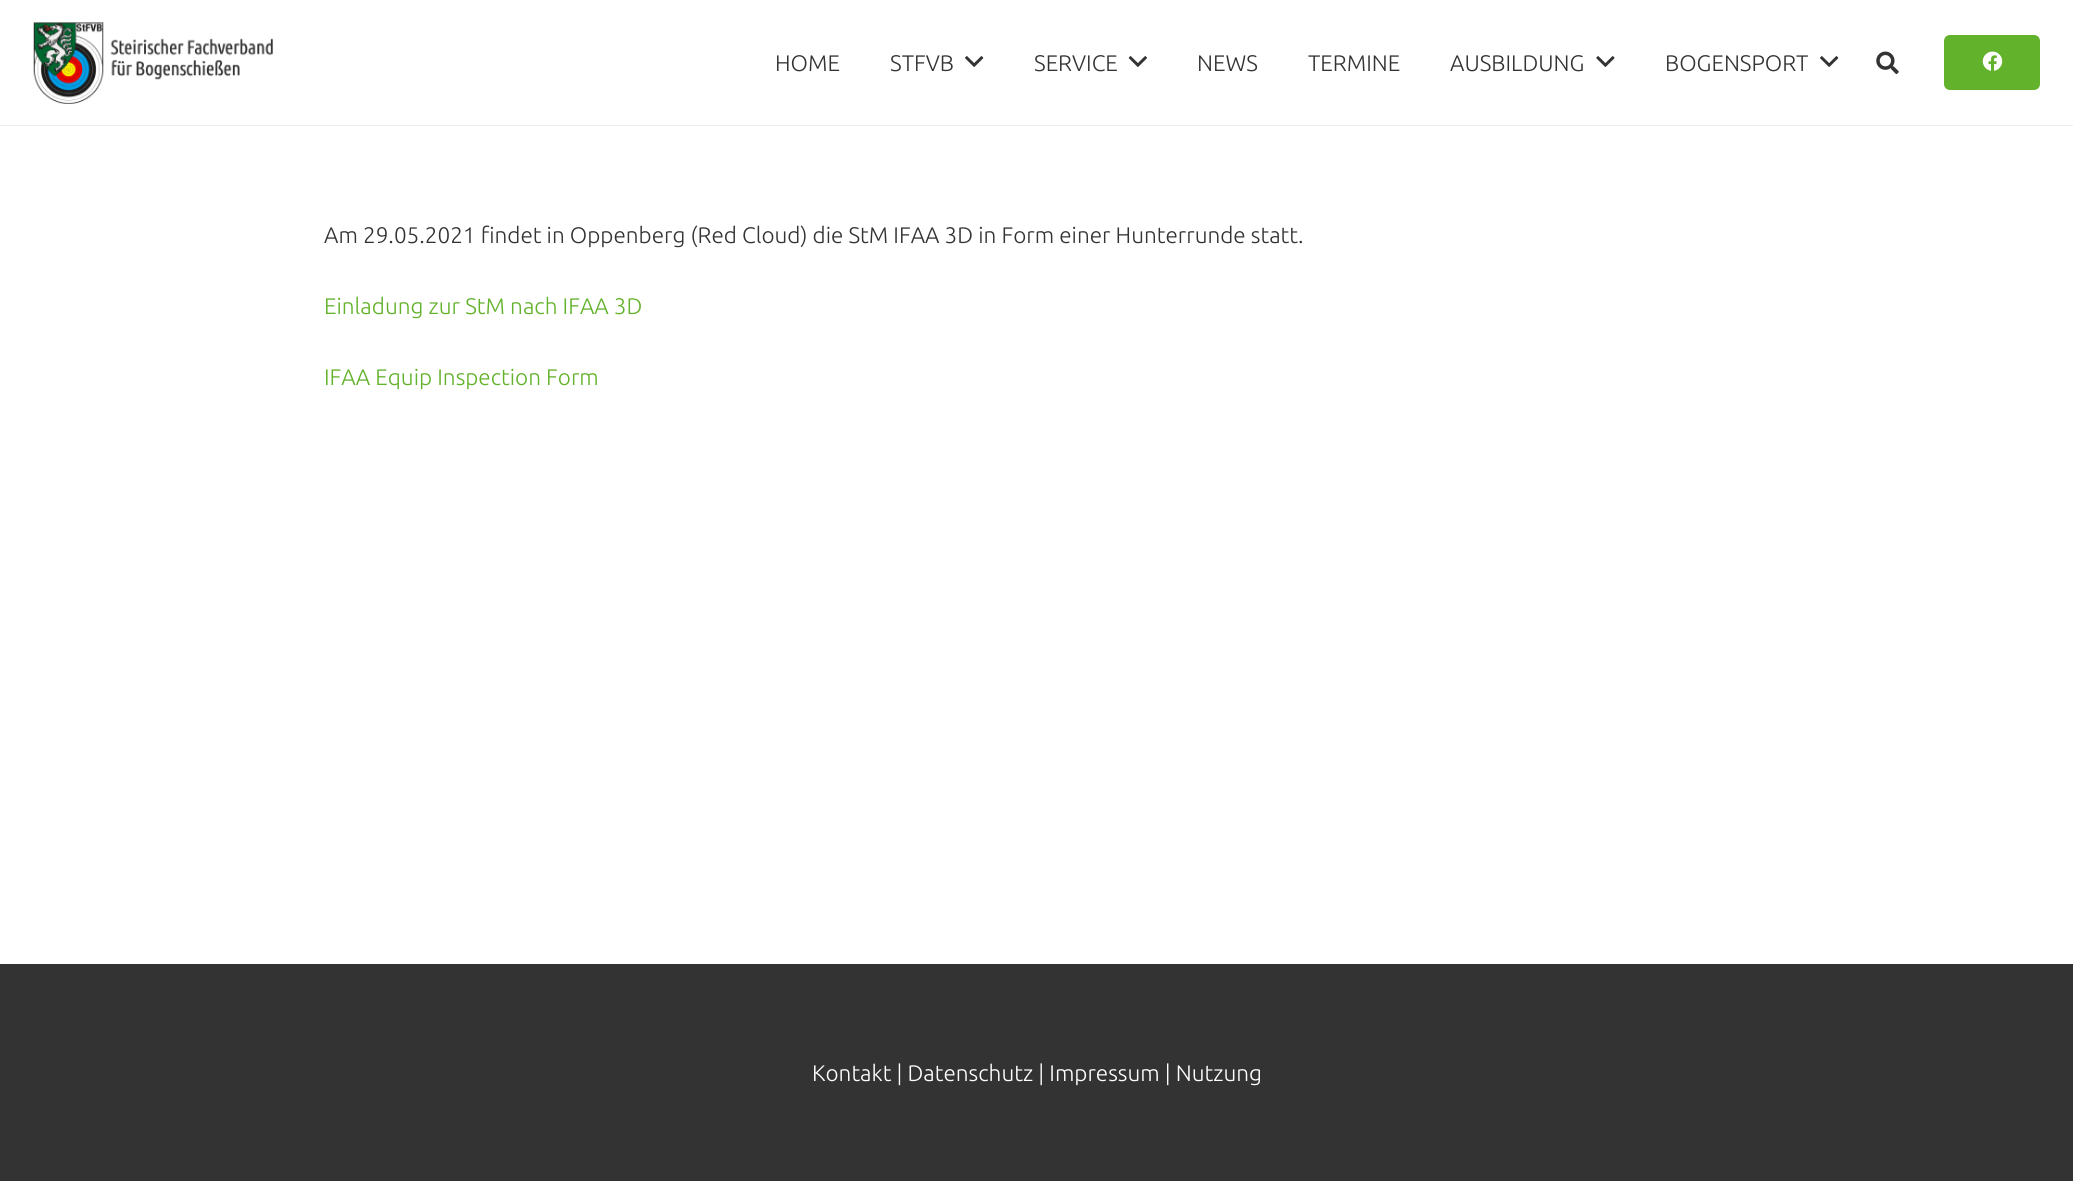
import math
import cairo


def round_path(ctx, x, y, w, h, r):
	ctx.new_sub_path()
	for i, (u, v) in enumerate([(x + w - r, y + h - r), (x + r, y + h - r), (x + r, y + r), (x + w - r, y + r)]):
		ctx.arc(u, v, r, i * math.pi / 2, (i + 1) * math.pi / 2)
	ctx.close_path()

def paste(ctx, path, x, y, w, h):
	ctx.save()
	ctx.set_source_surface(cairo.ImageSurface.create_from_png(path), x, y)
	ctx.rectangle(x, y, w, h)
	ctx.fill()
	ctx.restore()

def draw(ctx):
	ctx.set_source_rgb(1, 1, 1)
	ctx.paint()
	ctx.set_source_rgb(0.922, 0.922, 0.922)
	ctx.new_path()
	ctx.move_to(0, 125)
	ctx.line_to(0, 126)
	ctx.line_to(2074, 126)
	ctx.line_to(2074, 1)
	ctx.line_to(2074, 125)
	ctx.close_path()
	ctx.fill()
	paste(ctx, 'media/1.png', 33, 22, 240, 82)
	ctx.select_font_face('Ubuntu Light')
	ctx.set_font_size(22.5)
	ctx.set_source_rgb(0.2, 0.2, 0.2)
	ctx.move_to(775, 71)
	ctx.show_text('HOME')
	ctx.move_to(890, 71)
	ctx.show_text('STFVB')
	paste(ctx, 'media/2.png', 965, 56, 19, 11)
	ctx.move_to(1034, 71)
	ctx.show_text('SERVICE')
	paste(ctx, 'media/3.png', 1128, 56, 19, 11)
	for x, y, s in [
		(1197, 71, 'NEWS'),
		(1308, 71, 'TERMINE'),
		(1450, 71, 'AUSBILDUNG'),
	]:
		ctx.move_to(x, y)
		ctx.show_text(s)
	paste(ctx, 'media/4.png', 1596, 56, 19, 11)
	ctx.move_to(1665, 71)
	ctx.show_text('BOGENSPORT')
	paste(ctx, 'media/2.png', 1820, 56, 19, 11)
	paste(ctx, 'media/5.png', 1876, 51, 23, 23)
	ctx.set_source_rgb(0.388, 0.698, 0.169)
	round_path(ctx, 1944, 35, 96, 55, 6)
	ctx.fill()
	paste(ctx, 'media/6.png', 1982, 51, 21, 20)
	ctx.set_source_rgb(0.2, 0.2, 0.2)
	ctx.move_to(324, 243)
	ctx.show_text('Am 29.05.2021 findet in Oppenberg (Red Cloud) die StM IFAA 3D in Form einer Hunterrunde statt.')
	ctx.set_source_rgb(0.388, 0.698, 0.169)
	ctx.move_to(324, 314)
	ctx.show_text('Einladung zur StM nach IFAA 3D')
	ctx.move_to(324, 385)
	ctx.show_text('IFAA Equip Inspection Form')
	ctx.set_source_rgb(0.2, 0.2, 0.2)
	ctx.rectangle(0, 964, 2073, 217)
	ctx.fill()
	ctx.set_source_rgb(1, 1, 1)
	ctx.move_to(812, 1081)
	ctx.show_text('Kontakt | Datenschutz | Impressum | Nutzung')


surface = cairo.ImageSurface(cairo.FORMAT_RGB24, 2073, 1181)
ctx = cairo.Context(surface)
options = cairo.FontOptions()
options.set_hint_metrics(cairo.HINT_METRICS_OFF)
options.set_hint_style(cairo.HINT_STYLE_NONE)
ctx.set_font_options(options)
ctx.set_miter_limit(4)
draw(ctx)
surface.write_to_png('image.png')
